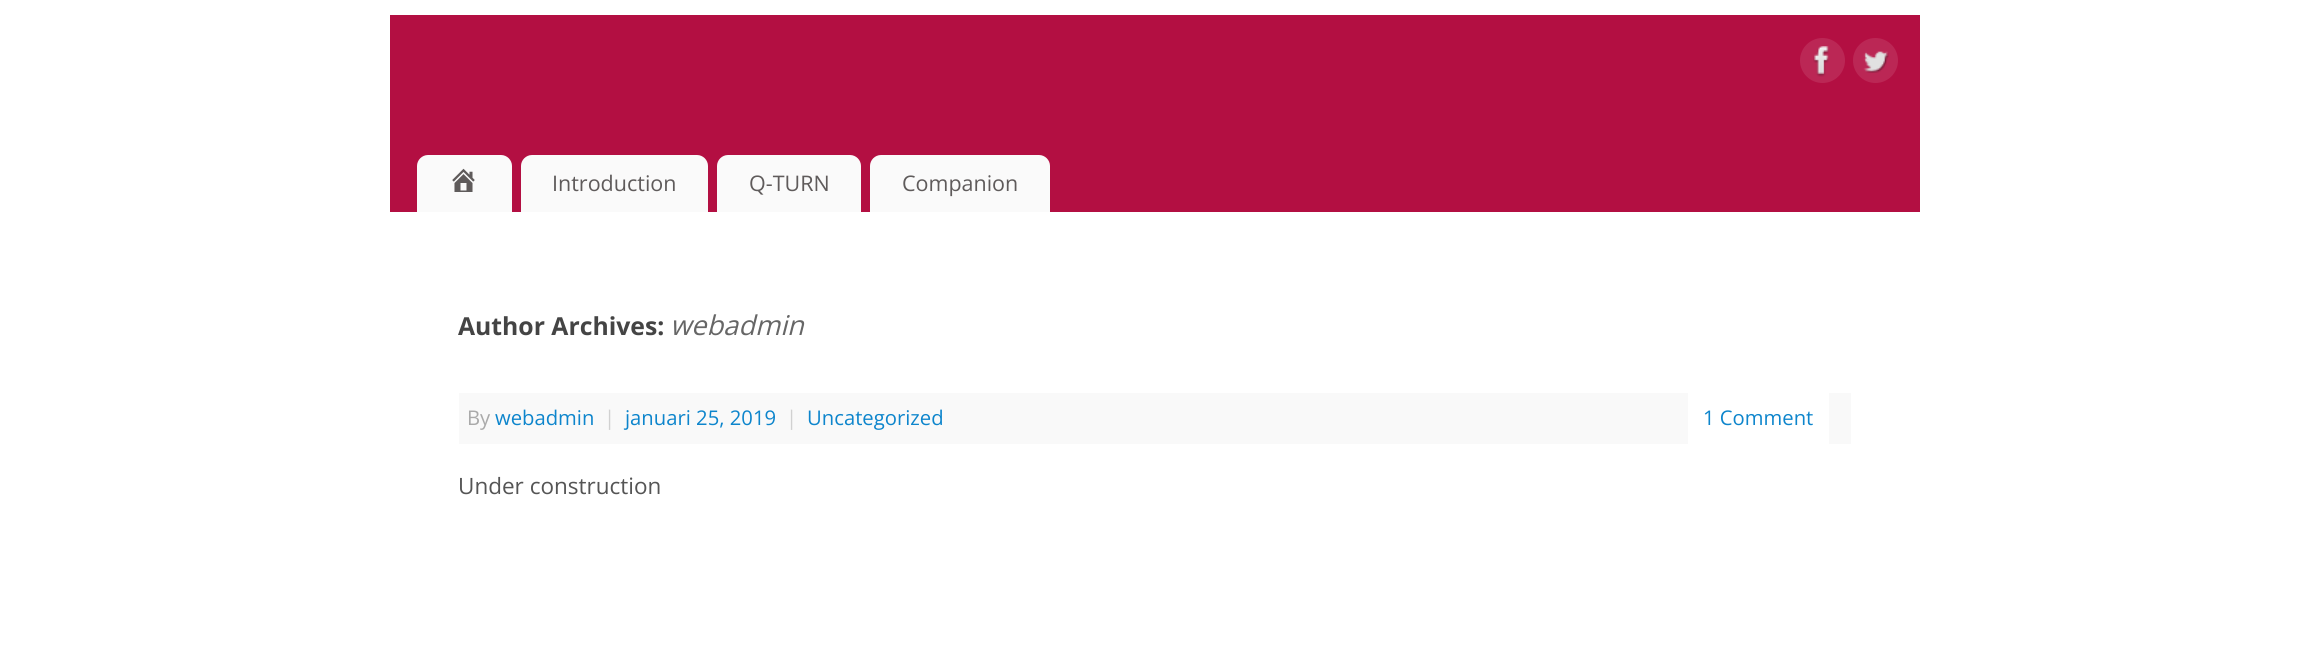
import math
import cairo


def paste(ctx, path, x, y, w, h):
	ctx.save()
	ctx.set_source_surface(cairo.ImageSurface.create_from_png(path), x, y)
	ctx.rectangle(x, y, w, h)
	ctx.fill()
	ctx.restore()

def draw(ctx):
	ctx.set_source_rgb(1, 1, 1)
	ctx.paint()
	ctx.set_source_rgb(0.702, 0.059, 0.259)
	ctx.rectangle(390, 15, 1530, 197)
	ctx.fill()
	ctx.set_source_rgb(0.733, 0.153, 0.333)
	ctx.arc(1822.5, 60.5, 22.5, 0, 2 * math.pi)
	ctx.fill()
	paste(ctx, 'media/1.png', 1813, 46, 16, 31)
	ctx.arc(1875.5, 60.5, 22.5, 0, 2 * math.pi)
	ctx.fill()
	paste(ctx, 'media/2.png', 1863, 51, 26, 22)
	ctx.set_source_rgb(0.98, 0.98, 0.98)
	ctx.new_path()
	ctx.move_to(428, 155)
	ctx.line_to(501, 155)
	ctx.curve_to(507, 155, 512, 160, 512, 166)
	ctx.line_to(512, 212)
	ctx.line_to(417, 212)
	ctx.line_to(417, 166)
	ctx.curve_to(417, 160, 422, 155, 428, 155)
	ctx.close_path()
	ctx.fill()
	paste(ctx, 'media/3.png', 452, 168, 23, 24)
	ctx.new_path()
	ctx.move_to(532, 155)
	ctx.line_to(697, 155)
	ctx.curve_to(703, 155, 708, 160, 708, 166)
	ctx.line_to(708, 212)
	ctx.line_to(521, 212)
	ctx.line_to(521, 166)
	ctx.curve_to(521, 160, 526, 155, 532, 155)
	ctx.close_path()
	ctx.fill()
	ctx.select_font_face('Open Sans')
	ctx.set_font_size(21.5)
	ctx.set_source_rgb(0.373, 0.357, 0.357)
	ctx.move_to(552, 191)
	ctx.show_text('Introduction')
	ctx.set_source_rgb(0.98, 0.98, 0.98)
	ctx.new_path()
	ctx.move_to(728, 155)
	ctx.line_to(850, 155)
	ctx.curve_to(856, 155, 861, 160, 861, 166)
	ctx.line_to(861, 212)
	ctx.line_to(717, 212)
	ctx.line_to(717, 166)
	ctx.curve_to(717, 160, 722, 155, 728, 155)
	ctx.close_path()
	ctx.fill()
	ctx.set_source_rgb(0.373, 0.357, 0.357)
	ctx.move_to(749, 191)
	ctx.show_text('Q-TURN')
	ctx.set_source_rgb(0.98, 0.98, 0.98)
	ctx.new_path()
	ctx.move_to(881, 155)
	ctx.line_to(1039, 155)
	ctx.curve_to(1045, 155, 1050, 160, 1050, 166)
	ctx.line_to(1050, 212)
	ctx.line_to(870, 212)
	ctx.line_to(870, 166)
	ctx.curve_to(870, 160, 875, 155, 881, 155)
	ctx.close_path()
	ctx.fill()
	ctx.set_source_rgb(0.373, 0.357, 0.357)
	ctx.move_to(902, 191)
	ctx.show_text('Companion')
	ctx.select_font_face('Open Sans', cairo.FONT_SLANT_NORMAL, cairo.FONT_WEIGHT_BOLD)
	ctx.set_font_size(24.75)
	ctx.set_source_rgb(0.267, 0.267, 0.267)
	ctx.move_to(458, 335)
	ctx.show_text('Author Archives:')
	ctx.select_font_face('Open Sans', cairo.FONT_SLANT_ITALIC)
	ctx.set_font_size(27.25)
	ctx.set_source_rgb(0.4, 0.4, 0.4)
	ctx.move_to(670, 335)
	ctx.show_text('webadmin')
	ctx.set_source_rgb(0.973, 0.973, 0.973)
	ctx.rectangle(459, 393, 1392, 51)
	ctx.fill()
	ctx.select_font_face('Open Sans')
	ctx.set_font_size(20.25)
	ctx.set_source_rgb(0.667, 0.667, 0.667)
	ctx.move_to(467, 425)
	ctx.show_text('By')
	ctx.set_source_rgb(0.051, 0.522, 0.8)
	ctx.move_to(495, 425)
	ctx.show_text('webadmin')
	ctx.set_source_rgb(0.82, 0.82, 0.82)
	ctx.move_to(604, 425)
	ctx.show_text('|')
	ctx.set_source_rgb(0.051, 0.522, 0.8)
	ctx.move_to(625, 425)
	ctx.show_text('januari 25, 2019')
	ctx.set_source_rgb(0.82, 0.82, 0.82)
	ctx.move_to(786, 425)
	ctx.show_text('|')
	ctx.set_source_rgb(0.051, 0.522, 0.8)
	ctx.move_to(807, 425)
	ctx.show_text('Uncategorized')
	ctx.set_source_rgb(1, 1, 1)
	ctx.rectangle(1688, 393, 141, 51)
	ctx.fill()
	ctx.set_source_rgb(0.051, 0.522, 0.8)
	ctx.move_to(1703, 425)
	ctx.show_text('1 Comment')
	ctx.set_font_size(22.5)
	ctx.set_source_rgb(0.333, 0.333, 0.333)
	ctx.move_to(458, 494)
	ctx.show_text('Under construction')


surface = cairo.ImageSurface(cairo.FORMAT_RGB24, 2310, 651)
ctx = cairo.Context(surface)
options = cairo.FontOptions()
options.set_hint_metrics(cairo.HINT_METRICS_OFF)
options.set_hint_style(cairo.HINT_STYLE_NONE)
ctx.set_font_options(options)
ctx.set_miter_limit(4)
draw(ctx)
surface.write_to_png('image.png')
